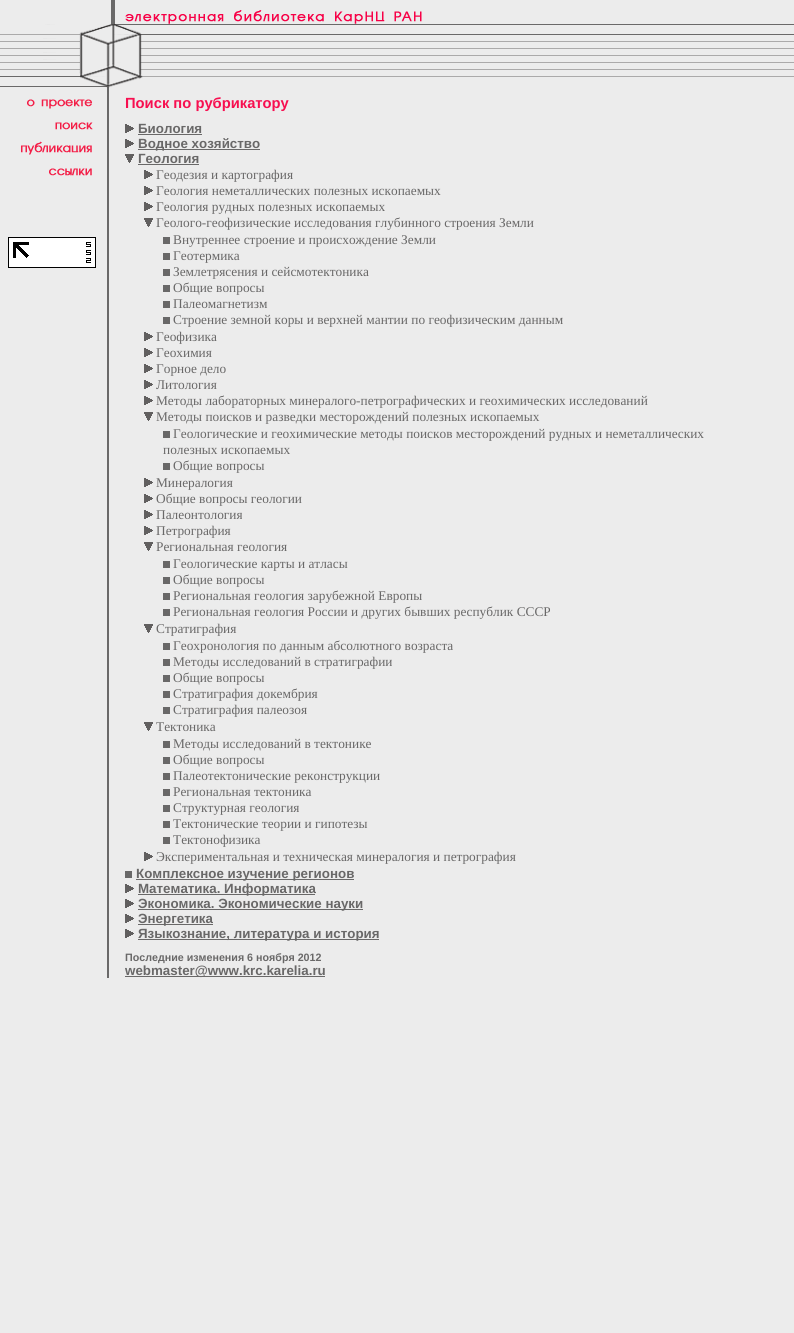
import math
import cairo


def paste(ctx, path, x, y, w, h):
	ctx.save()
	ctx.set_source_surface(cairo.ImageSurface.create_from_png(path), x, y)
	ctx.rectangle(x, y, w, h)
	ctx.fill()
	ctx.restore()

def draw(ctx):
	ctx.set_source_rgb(0.925, 0.925, 0.925)
	ctx.paint()
	paste(ctx, 'media/1.png', 422, 24, 372, 53)
	ctx.set_source_rgb(0.416, 0.412, 0.412)
	ctx.rectangle(111, 0, 4, 24)
	ctx.fill()
	paste(ctx, 'media/2.png', 125, 10, 297, 14)
	paste(ctx, 'media/3.png', 0, 24, 109, 70)
	paste(ctx, 'media/4.png', 109, 24, 16, 64)
	paste(ctx, 'media/5.png', 125, 24, 18, 59)
	paste(ctx, 'media/6.png', 143, 24, 279, 53)
	paste(ctx, 'media/7.png', 27, 99, 65, 10)
	paste(ctx, 'media/8.png', 55, 122, 38, 8)
	paste(ctx, 'media/9.png', 21, 141, 71, 14)
	paste(ctx, 'media/10.png', 49, 168, 43, 8)
	paste(ctx, 'media/11.png', 8, 237, 88, 31)
	ctx.rectangle(107, 94, 2, 884)
	ctx.fill()
	ctx.select_font_face('Liberation Sans', cairo.FONT_SLANT_NORMAL, cairo.FONT_WEIGHT_BOLD)
	ctx.set_font_size(14.75)
	ctx.set_source_rgb(0.965, 0.059, 0.314)
	ctx.move_to(125, 108)
	ctx.show_text('Поиск по рубрикатору')
	paste(ctx, 'media/12.png', 125, 124, 9, 9)
	ctx.set_font_size(13.35)
	ctx.set_source_rgb(0.412, 0.408, 0.408)
	ctx.move_to(138, 133)
	ctx.show_text('Биология')
	ctx.rectangle(138, 134, 64, 1)
	ctx.fill()
	paste(ctx, 'media/12.png', 125, 139, 9, 9)
	ctx.rectangle(138, 149, 122, 1)
	ctx.fill()
	ctx.move_to(138, 148)
	ctx.show_text('Водное хозяйство')
	paste(ctx, 'media/13.png', 125, 154, 9, 9)
	ctx.move_to(138, 163)
	ctx.show_text('Геология')
	ctx.rectangle(138, 164, 61, 1)
	ctx.fill()
	paste(ctx, 'media/12.png', 144, 170, 9, 9)
	ctx.select_font_face('Liberation Serif')
	ctx.move_to(156, 179)
	ctx.show_text('Геодезия и картография')
	paste(ctx, 'media/12.png', 144, 186, 9, 9)
	ctx.move_to(156, 195)
	ctx.show_text('Геология неметаллических полезных ископаемых')
	paste(ctx, 'media/12.png', 144, 202, 9, 9)
	ctx.move_to(156, 211)
	ctx.show_text('Геология рудных полезных ископаемых')
	paste(ctx, 'media/13.png', 144, 218, 9, 9)
	ctx.move_to(156, 227)
	ctx.show_text('Геолого-геофизические исследования глубинного строения Земли')
	ctx.rectangle(163, 237, 7, 7)
	ctx.fill()
	ctx.move_to(173, 244)
	ctx.show_text('Внутреннее строение и происхождение Земли')
	ctx.rectangle(163, 253, 7, 7)
	ctx.fill()
	ctx.move_to(173, 260)
	ctx.show_text('Геотермика')
	ctx.rectangle(163, 269, 7, 7)
	ctx.fill()
	ctx.move_to(173, 276)
	ctx.show_text('Землетрясения и сейсмотектоника')
	ctx.rectangle(163, 285, 7, 7)
	ctx.fill()
	ctx.move_to(173, 292)
	ctx.show_text('Общие вопросы')
	ctx.rectangle(163, 301, 7, 7)
	ctx.fill()
	ctx.move_to(173, 308)
	ctx.show_text('Палеомагнетизм')
	ctx.rectangle(163, 317, 7, 7)
	ctx.fill()
	ctx.move_to(173, 324)
	ctx.show_text('Строение земной коры и верхней мантии по геофизическим данным')
	paste(ctx, 'media/12.png', 144, 332, 9, 9)
	ctx.move_to(156, 341)
	ctx.show_text('Геофизика')
	paste(ctx, 'media/12.png', 144, 348, 9, 9)
	ctx.move_to(156, 357)
	ctx.show_text('Геохимия')
	paste(ctx, 'media/12.png', 144, 364, 9, 9)
	ctx.move_to(156, 373)
	ctx.show_text('Горное дело')
	paste(ctx, 'media/12.png', 144, 380, 9, 9)
	ctx.move_to(156, 389)
	ctx.show_text('Литология')
	paste(ctx, 'media/12.png', 144, 396, 9, 9)
	ctx.move_to(156, 405)
	ctx.show_text('Методы лабораторных минералого-петрографических и геохимических исследований')
	paste(ctx, 'media/13.png', 144, 412, 9, 9)
	ctx.move_to(156, 421)
	ctx.show_text('Методы поисков и разведки месторождений полезных ископаемых')
	ctx.rectangle(163, 431, 7, 7)
	ctx.fill()
	ctx.move_to(173, 438)
	ctx.show_text('Геологические и геохимические методы поисков месторождений рудных и неметаллических')
	ctx.move_to(163, 454)
	ctx.show_text('полезных ископаемых')
	ctx.rectangle(163, 463, 7, 7)
	ctx.fill()
	ctx.move_to(173, 470)
	ctx.show_text('Общие вопросы')
	paste(ctx, 'media/12.png', 144, 478, 9, 9)
	ctx.move_to(156, 487)
	ctx.show_text('Минералогия')
	paste(ctx, 'media/12.png', 144, 494, 9, 9)
	ctx.move_to(156, 503)
	ctx.show_text('Общие вопросы геологии')
	paste(ctx, 'media/12.png', 144, 510, 9, 9)
	ctx.move_to(156, 519)
	ctx.show_text('Палеонтология')
	paste(ctx, 'media/12.png', 144, 526, 9, 9)
	ctx.move_to(156, 535)
	ctx.show_text('Петрография')
	paste(ctx, 'media/13.png', 144, 542, 9, 9)
	ctx.move_to(156, 551)
	ctx.show_text('Региональная геология')
	ctx.rectangle(163, 561, 7, 7)
	ctx.fill()
	ctx.move_to(173, 568)
	ctx.show_text('Геологические карты и атласы')
	ctx.rectangle(163, 577, 7, 7)
	ctx.fill()
	ctx.move_to(173, 584)
	ctx.show_text('Общие вопросы')
	ctx.rectangle(163, 593, 7, 7)
	ctx.fill()
	ctx.move_to(173, 600)
	ctx.show_text('Региональная геология зарубежной Европы')
	ctx.rectangle(163, 609, 7, 7)
	ctx.fill()
	ctx.move_to(173, 616)
	ctx.show_text('Региональная геология России и других бывших республик СССР')
	paste(ctx, 'media/13.png', 144, 624, 9, 9)
	ctx.move_to(156, 633)
	ctx.show_text('Стратиграфия')
	ctx.rectangle(163, 643, 7, 7)
	ctx.fill()
	ctx.move_to(173, 650)
	ctx.show_text('Геохронология по данным абсолютного возраста')
	ctx.rectangle(163, 659, 7, 7)
	ctx.fill()
	ctx.move_to(173, 666)
	ctx.show_text('Методы исследований в стратиграфии')
	ctx.rectangle(163, 675, 7, 7)
	ctx.fill()
	ctx.move_to(173, 682)
	ctx.show_text('Общие вопросы')
	ctx.rectangle(163, 691, 7, 7)
	ctx.fill()
	ctx.move_to(173, 698)
	ctx.show_text('Стратиграфия докембрия')
	ctx.rectangle(163, 707, 7, 7)
	ctx.fill()
	ctx.move_to(173, 714)
	ctx.show_text('Стратиграфия палеозоя')
	paste(ctx, 'media/13.png', 144, 722, 9, 9)
	ctx.move_to(156, 731)
	ctx.show_text('Тектоника')
	ctx.rectangle(163, 741, 7, 7)
	ctx.fill()
	ctx.move_to(173, 748)
	ctx.show_text('Методы исследований в тектонике')
	ctx.rectangle(163, 757, 7, 7)
	ctx.fill()
	ctx.move_to(173, 764)
	ctx.show_text('Общие вопросы')
	ctx.rectangle(163, 773, 7, 7)
	ctx.fill()
	ctx.move_to(173, 780)
	ctx.show_text('Палеотектонические реконструкции')
	ctx.rectangle(163, 789, 7, 7)
	ctx.fill()
	ctx.move_to(173, 796)
	ctx.show_text('Региональная тектоника')
	ctx.rectangle(163, 805, 7, 7)
	ctx.fill()
	ctx.move_to(173, 812)
	ctx.show_text('Структурная геология')
	ctx.rectangle(163, 821, 7, 7)
	ctx.fill()
	ctx.move_to(173, 828)
	ctx.show_text('Тектонические теории и гипотезы')
	ctx.rectangle(163, 837, 7, 7)
	ctx.fill()
	ctx.move_to(173, 844)
	ctx.show_text('Тектонофизика')
	paste(ctx, 'media/12.png', 144, 852, 9, 9)
	ctx.move_to(156, 861)
	ctx.show_text('Экспериментальная и техническая минералогия и петрография')
	ctx.rectangle(125, 871, 7, 7)
	ctx.fill()
	ctx.rectangle(136, 879, 218, 1)
	ctx.fill()
	ctx.select_font_face('Liberation Sans', cairo.FONT_SLANT_NORMAL, cairo.FONT_WEIGHT_BOLD)
	ctx.move_to(136, 878)
	ctx.show_text('Комплексное изучение регионов')
	paste(ctx, 'media/12.png', 125, 884, 9, 9)
	ctx.rectangle(138, 894, 177, 1)
	ctx.fill()
	ctx.move_to(138, 893)
	ctx.show_text('Математика. Информатика')
	paste(ctx, 'media/12.png', 125, 899, 9, 9)
	ctx.rectangle(138, 909, 225, 1)
	ctx.fill()
	ctx.move_to(138, 908)
	ctx.show_text('Экономика. Экономические науки')
	paste(ctx, 'media/12.png', 125, 914, 9, 9)
	ctx.rectangle(138, 924, 75, 1)
	ctx.fill()
	ctx.move_to(138, 923)
	ctx.show_text('Энергетика')
	paste(ctx, 'media/12.png', 125, 929, 9, 9)
	ctx.rectangle(138, 939, 241, 1)
	ctx.fill()
	ctx.move_to(138, 938)
	ctx.show_text('Языкознание, литература и история')
	ctx.set_font_size(10.7)
	ctx.move_to(125, 961)
	ctx.show_text('Последние изменения 6 ноября 2012')
	ctx.rectangle(125, 976, 200, 1)
	ctx.fill()
	ctx.set_font_size(13.35)
	ctx.move_to(125, 975)
	ctx.show_text('webmaster@www.krc.karelia.ru')


surface = cairo.ImageSurface(cairo.FORMAT_RGB24, 794, 1333)
ctx = cairo.Context(surface)
options = cairo.FontOptions()
options.set_hint_metrics(cairo.HINT_METRICS_OFF)
options.set_hint_style(cairo.HINT_STYLE_NONE)
ctx.set_font_options(options)
ctx.set_miter_limit(4)
draw(ctx)
surface.write_to_png('image.png')
